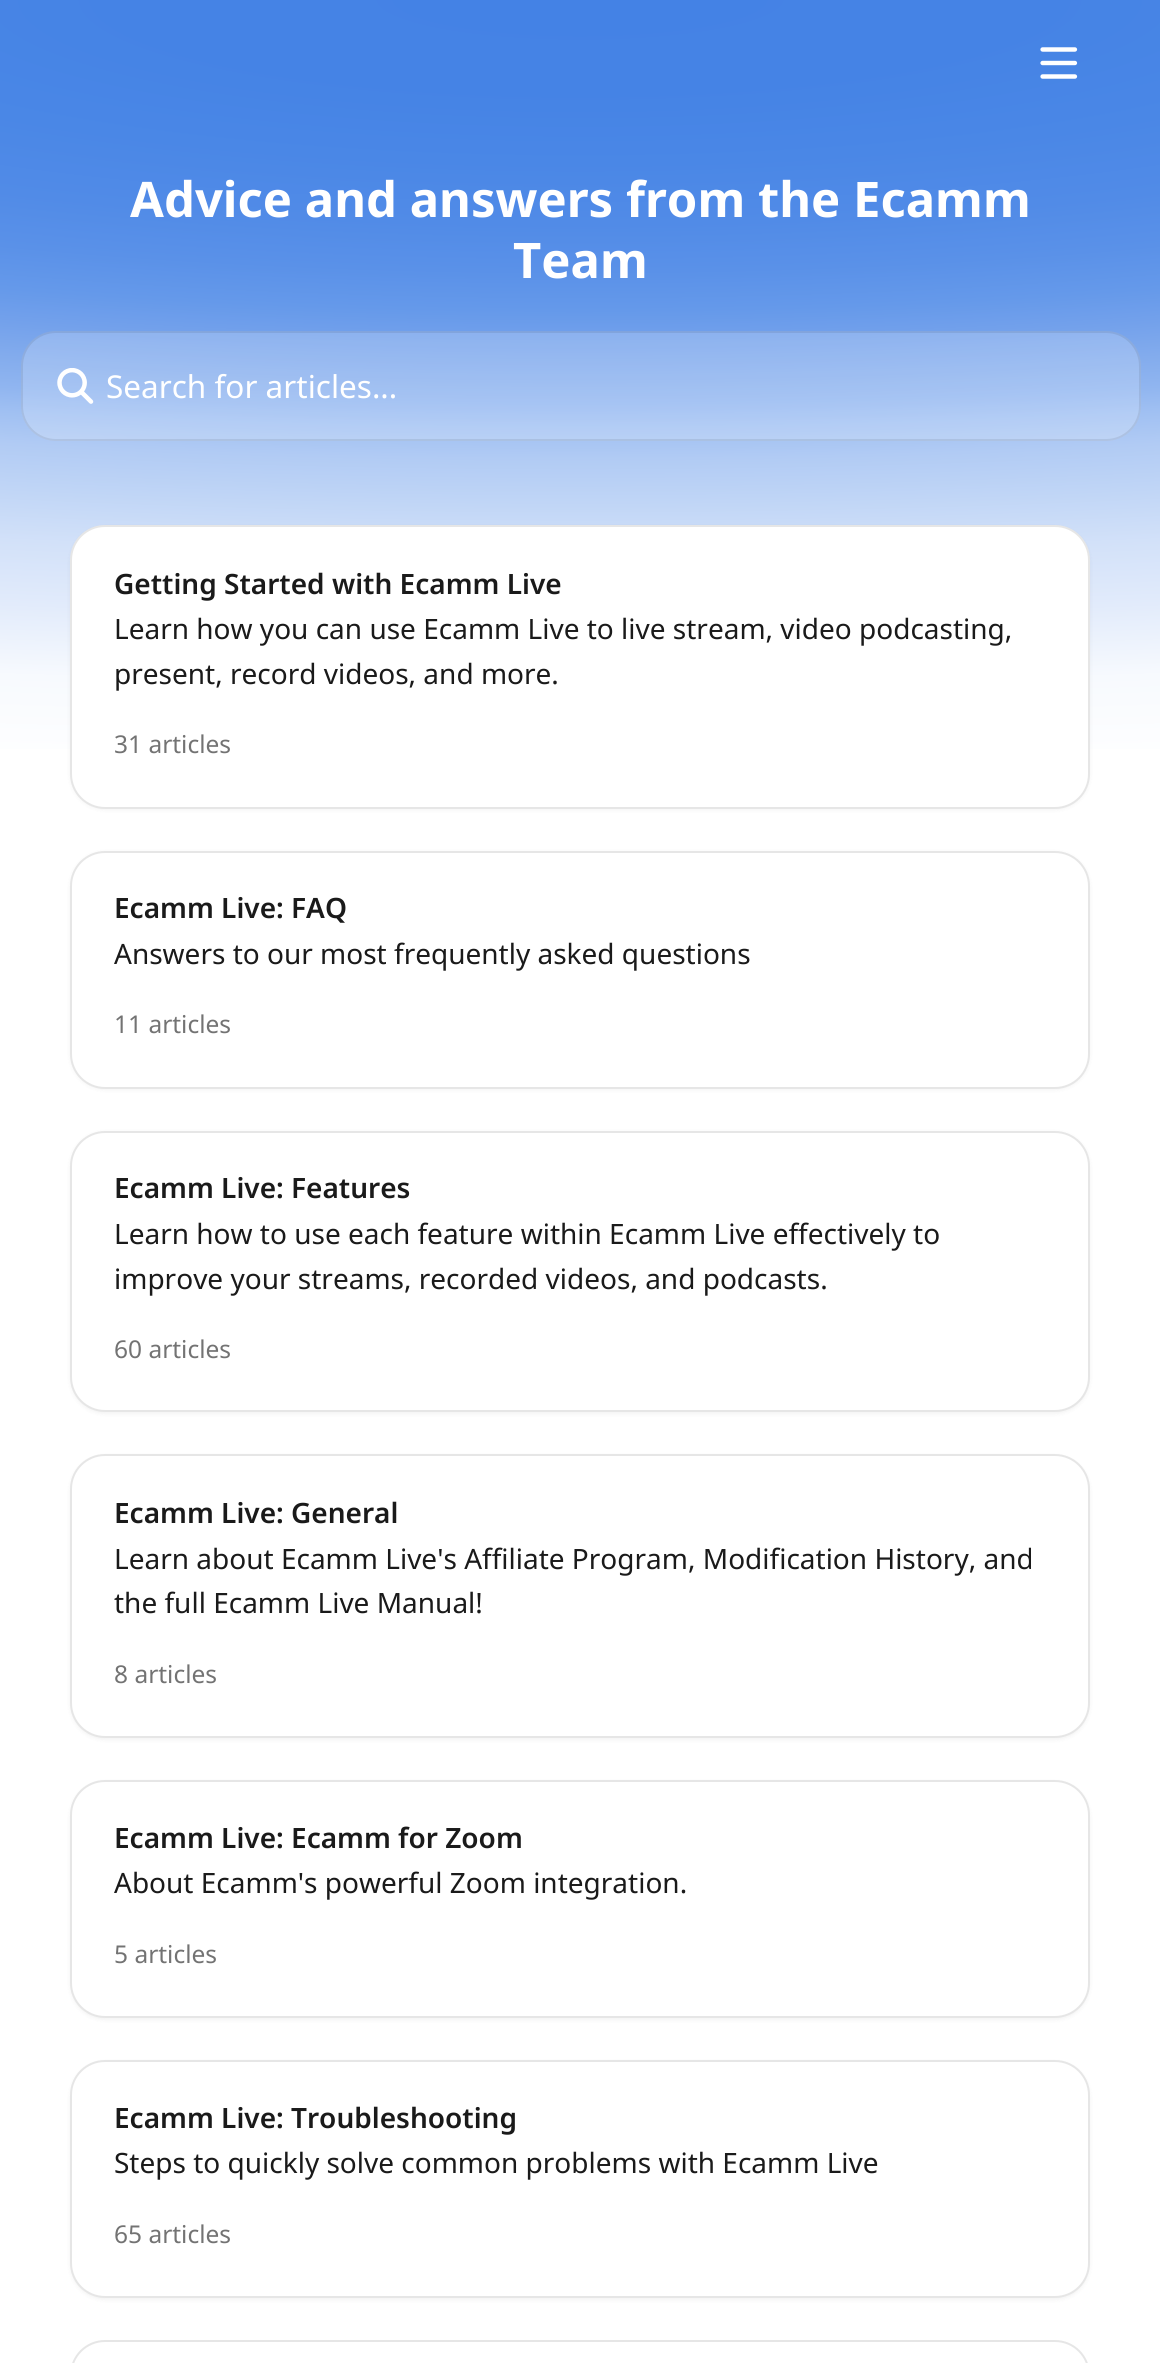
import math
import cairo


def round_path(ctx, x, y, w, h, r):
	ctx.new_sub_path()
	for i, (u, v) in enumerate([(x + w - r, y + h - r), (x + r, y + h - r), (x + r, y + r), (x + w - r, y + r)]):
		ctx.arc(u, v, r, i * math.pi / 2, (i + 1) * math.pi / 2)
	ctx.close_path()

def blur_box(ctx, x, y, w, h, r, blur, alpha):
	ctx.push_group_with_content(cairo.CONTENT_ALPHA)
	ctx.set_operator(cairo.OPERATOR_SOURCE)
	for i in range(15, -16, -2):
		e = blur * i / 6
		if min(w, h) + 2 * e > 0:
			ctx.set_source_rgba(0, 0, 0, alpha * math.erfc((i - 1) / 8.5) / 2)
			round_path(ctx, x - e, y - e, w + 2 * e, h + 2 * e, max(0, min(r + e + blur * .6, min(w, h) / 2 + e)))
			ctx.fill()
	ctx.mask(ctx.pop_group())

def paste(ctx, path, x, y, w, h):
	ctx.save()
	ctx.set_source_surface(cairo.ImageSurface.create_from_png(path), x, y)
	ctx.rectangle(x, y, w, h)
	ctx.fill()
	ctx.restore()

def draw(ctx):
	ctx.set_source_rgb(1, 1, 1)
	ctx.paint()
	gradient = cairo.RadialGradient(0, 0, 0, 0, 0, 1)
	gradient.set_matrix(cairo.Matrix(1 / 3868, 0, 0, 1 / 777, -1 * 580 / 3868, -1 * 0 / 777))
	gradient.add_color_stop_rgba(0, 0.267, 0.51, 0.898, 1)
	gradient.add_color_stop_rgba(0.12, 0.271, 0.514, 0.898, 1)
	gradient.add_color_stop_rgba(0.21, 0.29, 0.529, 0.902, 1)
	gradient.add_color_stop_rgba(0.29, 0.318, 0.545, 0.906, 1)
	gradient.add_color_stop_rgba(0.35, 0.353, 0.569, 0.91, 1)
	gradient.add_color_stop_rgba(0.4, 0.396, 0.6, 0.918, 1)
	gradient.add_color_stop_rgba(0.44, 0.451, 0.631, 0.922, 1)
	gradient.add_color_stop_rgba(0.48, 0.51, 0.671, 0.929, 1)
	gradient.add_color_stop_rgba(0.52, 0.565, 0.71, 0.941, 1)
	gradient.add_color_stop_rgba(0.55, 0.627, 0.753, 0.949, 1)
	gradient.add_color_stop_rgba(0.59, 0.694, 0.796, 0.957, 1)
	gradient.add_color_stop_rgba(0.65, 0.757, 0.839, 0.965, 1)
	gradient.add_color_stop_rgba(0.71, 0.824, 0.882, 0.976, 1)
	gradient.add_color_stop_rgba(0.79, 0.886, 0.922, 0.984, 1)
	gradient.add_color_stop_rgba(0.88, 0.969, 0.98, 0.996, 1)
	gradient.add_color_stop_rgba(1, 1, 1, 1, 1)
	ctx.set_source(gradient)
	ctx.rectangle(0, 0, 1160, 749)
	ctx.fill()
	paste(ctx, 'media/1.png', 1040, 47, 38, 32)
	ctx.select_font_face('Noto Sans', cairo.FONT_SLANT_NORMAL, cairo.FONT_WEIGHT_BOLD)
	ctx.set_font_size(49)
	ctx.set_source_rgb(1, 1, 1)
	ctx.move_to(130, 217)
	ctx.show_text('Advice and answers from the Ecamm')
	ctx.move_to(513, 278)
	ctx.show_text('Team')
	ctx.set_source_rgba(1, 1, 1, 0.2)
	round_path(ctx, 21, 331, 1120, 110, 35)
	ctx.fill()
	round_path(ctx, 22, 332, 1118, 108, 34)
	ctx.set_source_rgba(0, 0, 0, 0.08)
	ctx.stroke()
	paste(ctx, 'media/2.png', 57, 368, 37, 36)
	ctx.select_font_face('Noto Sans')
	ctx.set_font_size(31.5)
	ctx.set_source_rgb(1, 1, 1)
	ctx.move_to(106, 398)
	ctx.show_text('Search for articles...')
	ctx.set_source_rgb(0, 0, 0)
	blur_box(ctx, 70, 527, 1020, 283, 35, 2, 0.05)
	ctx.set_source_rgb(1, 1, 1)
	round_path(ctx, 71, 526, 1018, 282, 34)
	ctx.fill_preserve()
	ctx.set_source_rgb(0.902, 0.902, 0.902)
	ctx.stroke()
	ctx.select_font_face('Noto Sans SemiBold')
	ctx.set_font_size(28)
	ctx.set_source_rgb(0.102, 0.102, 0.102)
	ctx.move_to(114, 594)
	ctx.show_text('Getting Started with Ecamm Live')
	ctx.select_font_face('Noto Sans')
	ctx.move_to(114, 639)
	ctx.show_text('Learn how you can use Ecamm Live to live stream, video podcasting,')
	ctx.move_to(114, 684)
	ctx.show_text('present, record videos, and more.')
	ctx.set_font_size(24.5)
	ctx.set_source_rgb(0.451, 0.451, 0.451)
	ctx.move_to(114, 753)
	ctx.show_text('31 articles')
	ctx.set_source_rgb(0, 0, 0)
	blur_box(ctx, 70, 852, 1020, 238, 35, 2, 0.05)
	ctx.set_source_rgb(1, 1, 1)
	round_path(ctx, 71, 852, 1018, 236, 34)
	ctx.fill_preserve()
	ctx.set_source_rgb(0.902, 0.902, 0.902)
	ctx.stroke()
	ctx.select_font_face('Noto Sans SemiBold')
	ctx.set_font_size(28)
	ctx.set_source_rgb(0.102, 0.102, 0.102)
	ctx.move_to(114, 918)
	ctx.show_text('Ecamm Live: FAQ')
	ctx.select_font_face('Noto Sans')
	ctx.move_to(114, 964)
	ctx.show_text('Answers to our most frequently asked questions')
	ctx.set_font_size(24.5)
	ctx.set_source_rgb(0.451, 0.451, 0.451)
	ctx.move_to(114, 1033)
	ctx.show_text('11 articles')
	ctx.set_source_rgb(0, 0, 0)
	blur_box(ctx, 70, 1132, 1020, 282, 35, 2, 0.05)
	ctx.set_source_rgb(1, 1, 1)
	round_path(ctx, 71, 1132, 1018, 279, 34)
	ctx.fill_preserve()
	ctx.set_source_rgb(0.902, 0.902, 0.902)
	ctx.stroke()
	ctx.select_font_face('Noto Sans SemiBold')
	ctx.set_font_size(28)
	ctx.set_source_rgb(0.102, 0.102, 0.102)
	ctx.move_to(114, 1198)
	ctx.show_text('Ecamm Live: Features')
	ctx.select_font_face('Noto Sans')
	ctx.move_to(114, 1244)
	ctx.show_text('Learn how to use each feature within Ecamm Live effectively to')
	ctx.move_to(114, 1289)
	ctx.show_text('improve your streams, recorded videos, and podcasts.')
	ctx.set_font_size(24.5)
	ctx.set_source_rgb(0.451, 0.451, 0.451)
	ctx.move_to(114, 1358)
	ctx.show_text('60 articles')
	ctx.set_source_rgb(0, 0, 0)
	blur_box(ctx, 70, 1456, 1020, 284, 35, 2, 0.05)
	ctx.set_source_rgb(1, 1, 1)
	round_path(ctx, 71, 1455, 1018, 282, 34)
	ctx.fill_preserve()
	ctx.set_source_rgb(0.902, 0.902, 0.902)
	ctx.stroke()
	ctx.select_font_face('Noto Sans SemiBold')
	ctx.set_font_size(28)
	ctx.set_source_rgb(0.102, 0.102, 0.102)
	ctx.move_to(114, 1523)
	ctx.show_text('Ecamm Live: General')
	ctx.select_font_face('Noto Sans')
	ctx.move_to(114, 1569)
	ctx.show_text('Learn about Ecamm Live\'s Affiliate Program, Modification History, and')
	ctx.move_to(114, 1613)
	ctx.show_text('the full Ecamm Live Manual!')
	ctx.set_font_size(24.5)
	ctx.set_source_rgb(0.451, 0.451, 0.451)
	ctx.move_to(114, 1683)
	ctx.show_text('8 articles')
	ctx.set_source_rgb(0, 0, 0)
	blur_box(ctx, 70, 1782, 1020, 238, 35, 2, 0.05)
	ctx.set_source_rgb(1, 1, 1)
	round_path(ctx, 71, 1781, 1018, 236, 34)
	ctx.fill_preserve()
	ctx.set_source_rgb(0.902, 0.902, 0.902)
	ctx.stroke()
	ctx.select_font_face('Noto Sans SemiBold')
	ctx.set_font_size(28)
	ctx.set_source_rgb(0.102, 0.102, 0.102)
	ctx.move_to(114, 1848)
	ctx.show_text('Ecamm Live: Ecamm for Zoom')
	ctx.select_font_face('Noto Sans')
	ctx.move_to(114, 1893)
	ctx.show_text('About Ecamm\'s powerful Zoom integration.')
	ctx.set_font_size(24.5)
	ctx.set_source_rgb(0.451, 0.451, 0.451)
	ctx.move_to(114, 1963)
	ctx.show_text('5 articles')
	ctx.set_source_rgb(0, 0, 0)
	blur_box(ctx, 70, 2062, 1020, 238, 35, 2, 0.05)
	ctx.set_source_rgb(1, 1, 1)
	round_path(ctx, 71, 2061, 1018, 236, 34)
	ctx.fill_preserve()
	ctx.set_source_rgb(0.902, 0.902, 0.902)
	ctx.stroke()
	ctx.select_font_face('Noto Sans SemiBold')
	ctx.set_font_size(28)
	ctx.set_source_rgb(0.102, 0.102, 0.102)
	ctx.move_to(114, 2128)
	ctx.show_text('Ecamm Live: Troubleshooting')
	ctx.select_font_face('Noto Sans')
	ctx.move_to(114, 2173)
	ctx.show_text('Steps to quickly solve common problems with Ecamm Live')
	ctx.set_font_size(24.5)
	ctx.set_source_rgb(0.451, 0.451, 0.451)
	ctx.move_to(114, 2243)
	ctx.show_text('65 articles')
	round_path(ctx, 71, 2341, 1018, 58, 34)
	ctx.set_source_rgb(0.902, 0.902, 0.902)
	ctx.stroke()


surface = cairo.ImageSurface(cairo.FORMAT_RGB24, 1160, 2363)
ctx = cairo.Context(surface)
options = cairo.FontOptions()
options.set_hint_metrics(cairo.HINT_METRICS_OFF)
options.set_hint_style(cairo.HINT_STYLE_NONE)
ctx.set_font_options(options)
ctx.set_miter_limit(4)
draw(ctx)
surface.write_to_png('image.png')
